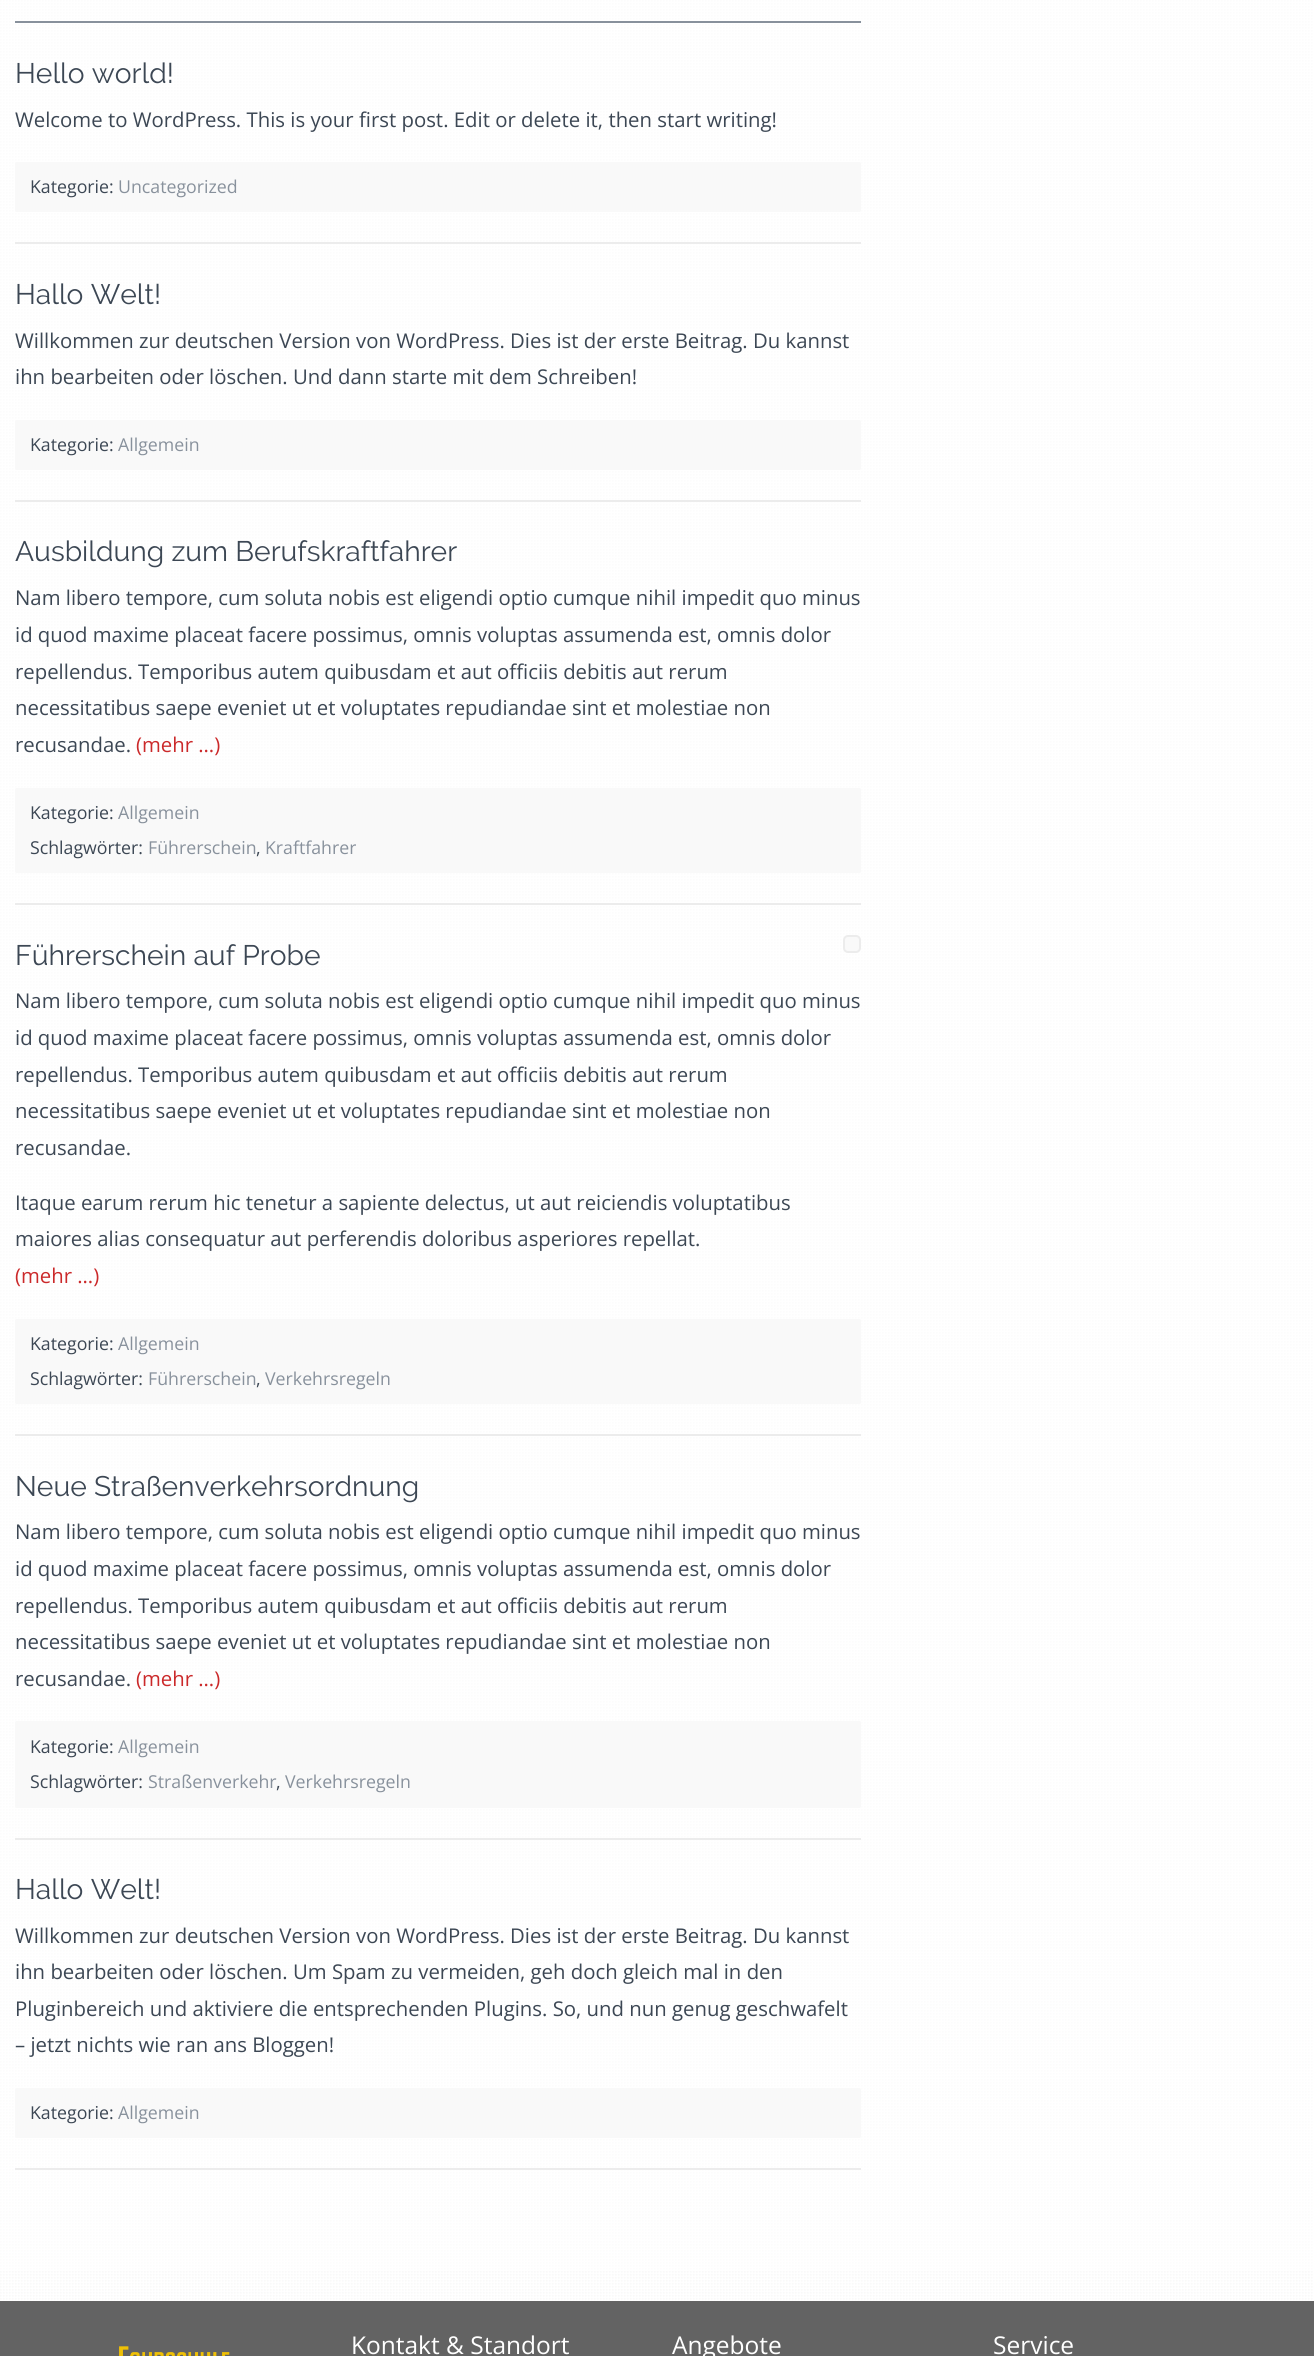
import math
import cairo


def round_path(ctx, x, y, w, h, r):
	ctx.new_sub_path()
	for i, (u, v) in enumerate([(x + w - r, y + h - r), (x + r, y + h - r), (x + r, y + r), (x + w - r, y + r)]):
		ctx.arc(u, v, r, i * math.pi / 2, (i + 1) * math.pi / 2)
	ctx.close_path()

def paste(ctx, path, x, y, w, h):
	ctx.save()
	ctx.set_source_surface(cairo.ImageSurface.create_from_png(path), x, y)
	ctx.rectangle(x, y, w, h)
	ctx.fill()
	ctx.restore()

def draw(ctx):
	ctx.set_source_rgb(1, 1, 1)
	ctx.paint()
	paste(ctx, 'media/1.png', 0, 0, 1313, 2301)
	ctx.set_source_rgb(0.533, 0.569, 0.612)
	ctx.rectangle(15, 21, 846, 2)
	ctx.fill()
	ctx.set_source_rgb(0.922, 0.922, 0.922)
	ctx.rectangle(15, 242, 846, 2)
	ctx.fill()
	ctx.select_font_face('Raleway')
	ctx.set_font_size(28.25)
	ctx.set_source_rgb(0.235, 0.278, 0.329)
	ctx.move_to(15, 83)
	ctx.show_text('Hello world!')
	ctx.select_font_face('Open Sans')
	ctx.set_font_size(20.35)
	ctx.move_to(15, 127)
	ctx.show_text('Welcome to WordPress. This is your first post. Edit or delete it, then start writing!')
	ctx.set_source_rgb(0.976, 0.976, 0.976)
	round_path(ctx, 15, 162, 846, 50, 1.5)
	ctx.fill()
	ctx.set_font_size(17.75)
	ctx.set_source_rgb(0.235, 0.278, 0.329)
	ctx.move_to(30, 193)
	ctx.show_text('Kategorie:')
	ctx.set_source_rgb(0.533, 0.569, 0.612)
	ctx.move_to(118, 193)
	ctx.show_text('Uncategorized')
	ctx.set_source_rgb(0.922, 0.922, 0.922)
	ctx.rectangle(15, 500, 846, 2)
	ctx.fill()
	ctx.select_font_face('Raleway')
	ctx.set_font_size(28.25)
	ctx.set_source_rgb(0.235, 0.278, 0.329)
	ctx.move_to(15, 304)
	ctx.show_text('Hallo Welt!')
	ctx.select_font_face('Open Sans')
	ctx.set_font_size(20.35)
	ctx.move_to(15, 348)
	ctx.show_text('Willkommen zur deutschen Version von WordPress. Dies ist der erste Beitrag. Du kannst')
	ctx.move_to(15, 384)
	ctx.show_text('ihn bearbeiten oder löschen. Und dann starte mit dem Schreiben!')
	ctx.set_source_rgb(0.976, 0.976, 0.976)
	round_path(ctx, 15, 420, 846, 50, 1.5)
	ctx.fill()
	ctx.set_font_size(17.75)
	ctx.set_source_rgb(0.235, 0.278, 0.329)
	ctx.move_to(30, 451)
	ctx.show_text('Kategorie:')
	ctx.set_source_rgb(0.533, 0.569, 0.612)
	ctx.move_to(118, 451)
	ctx.show_text('Allgemein')
	ctx.set_source_rgb(0.922, 0.922, 0.922)
	ctx.rectangle(15, 903, 846, 2)
	ctx.fill()
	ctx.select_font_face('Raleway')
	ctx.set_font_size(28.25)
	ctx.set_source_rgb(0.235, 0.278, 0.329)
	ctx.move_to(15, 561)
	ctx.show_text('Ausbildung zum Berufskraftfahrer')
	ctx.select_font_face('Open Sans')
	ctx.set_font_size(20.35)
	for x, y, s in [
		(15, 605, 'Nam libero tempore, cum soluta nobis est eligendi optio cumque nihil impedit quo minus'),
		(15, 642, 'id quod maxime placeat facere possimus, omnis voluptas assumenda est, omnis dolor'),
		(15, 679, 'repellendus. Temporibus autem quibusdam et aut officiis debitis aut rerum'),
		(15, 715, 'necessitatibus saepe eveniet ut et voluptates repudiandae sint et molestiae non'),
		(15, 752, 'recusandae.'),
	]:
		ctx.move_to(x, y)
		ctx.show_text(s)
	ctx.set_source_rgb(0.796, 0.161, 0.165)
	ctx.move_to(136, 752)
	ctx.show_text('(mehr …)')
	ctx.set_source_rgb(0.976, 0.976, 0.976)
	round_path(ctx, 15, 788, 846, 85, 1.5)
	ctx.fill()
	ctx.set_font_size(17.75)
	ctx.set_source_rgb(0.235, 0.278, 0.329)
	ctx.move_to(30, 819)
	ctx.show_text('Kategorie:')
	ctx.set_source_rgb(0.533, 0.569, 0.612)
	ctx.move_to(118, 819)
	ctx.show_text('Allgemein')
	ctx.set_source_rgb(0.235, 0.278, 0.329)
	ctx.move_to(30, 854)
	ctx.show_text('Schlagwörter:')
	ctx.set_source_rgb(0.533, 0.569, 0.612)
	ctx.move_to(148, 854)
	ctx.show_text('Führerschein')
	ctx.set_source_rgb(0.235, 0.278, 0.329)
	ctx.move_to(256, 854)
	ctx.show_text(',')
	ctx.set_source_rgb(0.533, 0.569, 0.612)
	ctx.move_to(265, 854)
	ctx.show_text('Kraftfahrer')
	ctx.set_source_rgb(0.922, 0.922, 0.922)
	ctx.rectangle(15, 1434, 846, 2)
	ctx.fill()
	ctx.select_font_face('Raleway')
	ctx.set_font_size(28.25)
	ctx.set_source_rgb(0.235, 0.278, 0.329)
	ctx.move_to(15, 965)
	ctx.show_text('Führerschein auf Probe')
	ctx.set_source_rgb(0.976, 0.976, 0.976)
	round_path(ctx, 844, 936, 16, 16, 4)
	ctx.fill_preserve()
	ctx.set_source_rgb(0.922, 0.922, 0.922)
	ctx.stroke()
	ctx.select_font_face('Open Sans')
	ctx.set_font_size(20.35)
	ctx.set_source_rgb(0.235, 0.278, 0.329)
	for x, y, s in [
		(15, 1008, 'Nam libero tempore, cum soluta nobis est eligendi optio cumque nihil impedit quo minus'),
		(15, 1045, 'id quod maxime placeat facere possimus, omnis voluptas assumenda est, omnis dolor'),
		(15, 1082, 'repellendus. Temporibus autem quibusdam et aut officiis debitis aut rerum'),
		(15, 1118, 'necessitatibus saepe eveniet ut et voluptates repudiandae sint et molestiae non'),
		(15, 1155, 'recusandae.'),
		(15, 1210, 'Itaque earum rerum hic tenetur a sapiente delectus, ut aut reiciendis voluptatibus'),
		(15, 1246, 'maiores alias consequatur aut perferendis doloribus asperiores repellat.'),
	]:
		ctx.move_to(x, y)
		ctx.show_text(s)
	ctx.set_source_rgb(0.796, 0.161, 0.165)
	ctx.move_to(15, 1283)
	ctx.show_text('(mehr …)')
	ctx.set_source_rgb(0.976, 0.976, 0.976)
	round_path(ctx, 15, 1319, 846, 85, 1.5)
	ctx.fill()
	ctx.set_font_size(17.75)
	ctx.set_source_rgb(0.235, 0.278, 0.329)
	ctx.move_to(30, 1350)
	ctx.show_text('Kategorie:')
	ctx.set_source_rgb(0.533, 0.569, 0.612)
	ctx.move_to(118, 1350)
	ctx.show_text('Allgemein')
	ctx.set_source_rgb(0.235, 0.278, 0.329)
	ctx.move_to(30, 1385)
	ctx.show_text('Schlagwörter:')
	ctx.set_source_rgb(0.533, 0.569, 0.612)
	ctx.move_to(148, 1385)
	ctx.show_text('Führerschein')
	ctx.set_source_rgb(0.235, 0.278, 0.329)
	ctx.move_to(256, 1385)
	ctx.show_text(',')
	ctx.set_source_rgb(0.533, 0.569, 0.612)
	ctx.move_to(265, 1385)
	ctx.show_text('Verkehrsregeln')
	ctx.set_source_rgb(0.922, 0.922, 0.922)
	ctx.rectangle(15, 1838, 846, 2)
	ctx.fill()
	ctx.select_font_face('Raleway')
	ctx.set_font_size(28.25)
	ctx.set_source_rgb(0.235, 0.278, 0.329)
	ctx.move_to(15, 1496)
	ctx.show_text('Neue Straßenverkehrsordnung')
	ctx.select_font_face('Open Sans')
	ctx.set_font_size(20.35)
	for x, y, s in [
		(15, 1539, 'Nam libero tempore, cum soluta nobis est eligendi optio cumque nihil impedit quo minus'),
		(15, 1576, 'id quod maxime placeat facere possimus, omnis voluptas assumenda est, omnis dolor'),
		(15, 1613, 'repellendus. Temporibus autem quibusdam et aut officiis debitis aut rerum'),
		(15, 1649, 'necessitatibus saepe eveniet ut et voluptates repudiandae sint et molestiae non'),
		(15, 1686, 'recusandae.'),
	]:
		ctx.move_to(x, y)
		ctx.show_text(s)
	ctx.set_source_rgb(0.796, 0.161, 0.165)
	ctx.move_to(136, 1686)
	ctx.show_text('(mehr …)')
	ctx.set_source_rgb(0.976, 0.976, 0.976)
	round_path(ctx, 15, 1721, 846, 87, 1.5)
	ctx.fill()
	ctx.set_font_size(17.75)
	ctx.set_source_rgb(0.235, 0.278, 0.329)
	ctx.move_to(30, 1753)
	ctx.show_text('Kategorie:')
	ctx.set_source_rgb(0.533, 0.569, 0.612)
	ctx.move_to(118, 1753)
	ctx.show_text('Allgemein')
	ctx.set_source_rgb(0.235, 0.278, 0.329)
	ctx.move_to(30, 1788)
	ctx.show_text('Schlagwörter:')
	ctx.set_source_rgb(0.533, 0.569, 0.612)
	ctx.move_to(148, 1788)
	ctx.show_text('Straßenverkehr')
	ctx.set_source_rgb(0.235, 0.278, 0.329)
	ctx.move_to(276, 1788)
	ctx.show_text(',')
	ctx.set_source_rgb(0.533, 0.569, 0.612)
	ctx.move_to(285, 1788)
	ctx.show_text('Verkehrsregeln')
	ctx.set_source_rgb(0.922, 0.922, 0.922)
	ctx.rectangle(15, 2168, 846, 2)
	ctx.fill()
	ctx.select_font_face('Raleway')
	ctx.set_font_size(28.25)
	ctx.set_source_rgb(0.235, 0.278, 0.329)
	ctx.move_to(15, 1899)
	ctx.show_text('Hallo Welt!')
	ctx.select_font_face('Open Sans')
	ctx.set_font_size(20.35)
	for x, y, s in [
		(15, 1943, 'Willkommen zur deutschen Version von WordPress. Dies ist der erste Beitrag. Du kannst'),
		(15, 1979, 'ihn bearbeiten oder löschen. Um Spam zu vermeiden, geh doch gleich mal in den'),
		(15, 2016, 'Pluginbereich und aktiviere die entsprechenden Plugins. So, und nun genug geschwafelt'),
		(15, 2052, '– jetzt nichts wie ran ans Bloggen!'),
	]:
		ctx.move_to(x, y)
		ctx.show_text(s)
	ctx.set_source_rgb(0.976, 0.976, 0.976)
	round_path(ctx, 15, 2088, 846, 50, 1.5)
	ctx.fill()
	ctx.set_font_size(17.75)
	ctx.set_source_rgb(0.235, 0.278, 0.329)
	ctx.move_to(30, 2119)
	ctx.show_text('Kategorie:')
	ctx.set_source_rgb(0.533, 0.569, 0.612)
	ctx.move_to(118, 2119)
	ctx.show_text('Allgemein')
	ctx.set_source_rgb(0.388, 0.388, 0.388)
	ctx.rectangle(0, 2301, 1314, 55)
	ctx.fill()
	paste(ctx, 'media/2.png', 119, 2346, 111, 10)
	ctx.set_font_size(24.5)
	ctx.set_source_rgb(1, 1, 1)
	for x, y, s in [
		(351, 2354, 'Kontakt & Standort'),
		(672, 2354, 'Angebote'),
		(993, 2354, 'Service'),
	]:
		ctx.move_to(x, y)
		ctx.show_text(s)


surface = cairo.ImageSurface(cairo.FORMAT_RGB24, 1314, 2356)
ctx = cairo.Context(surface)
options = cairo.FontOptions()
options.set_hint_metrics(cairo.HINT_METRICS_OFF)
options.set_hint_style(cairo.HINT_STYLE_NONE)
ctx.set_font_options(options)
ctx.set_miter_limit(4)
draw(ctx)
surface.write_to_png('image.png')
